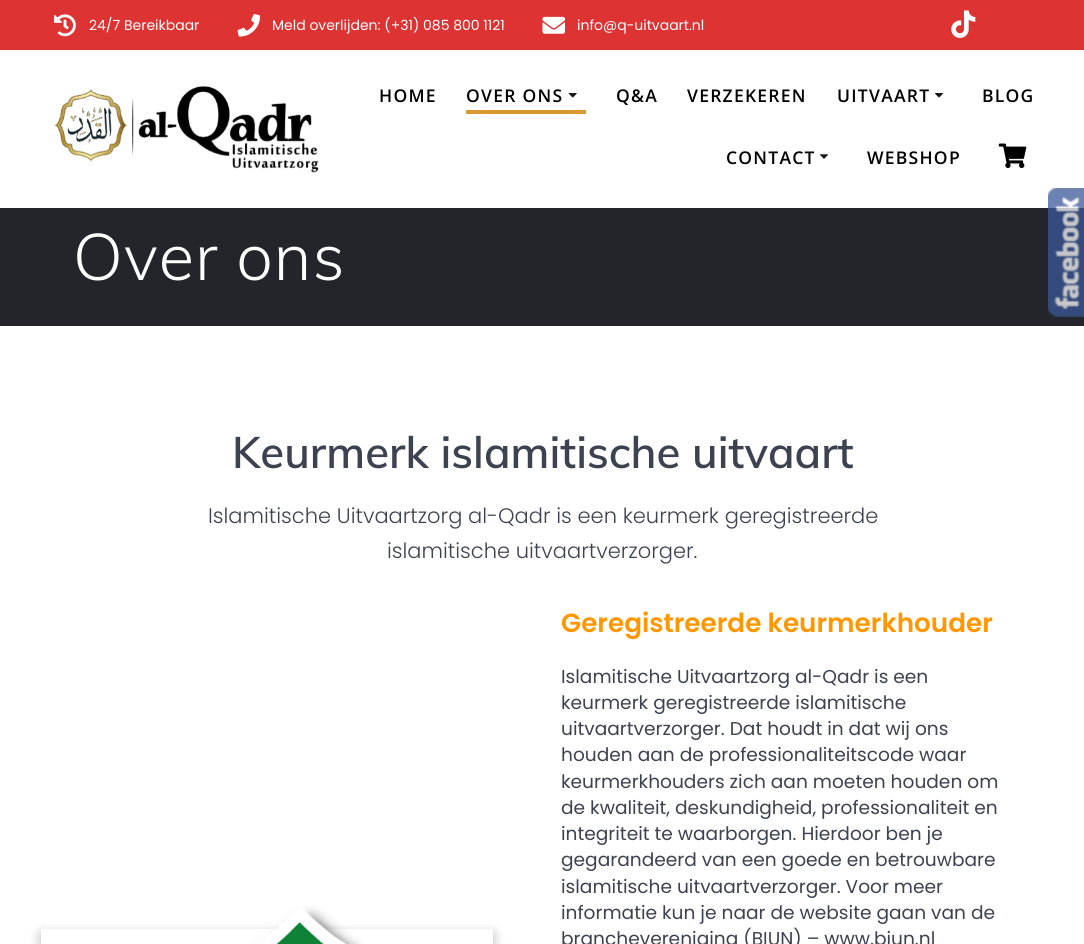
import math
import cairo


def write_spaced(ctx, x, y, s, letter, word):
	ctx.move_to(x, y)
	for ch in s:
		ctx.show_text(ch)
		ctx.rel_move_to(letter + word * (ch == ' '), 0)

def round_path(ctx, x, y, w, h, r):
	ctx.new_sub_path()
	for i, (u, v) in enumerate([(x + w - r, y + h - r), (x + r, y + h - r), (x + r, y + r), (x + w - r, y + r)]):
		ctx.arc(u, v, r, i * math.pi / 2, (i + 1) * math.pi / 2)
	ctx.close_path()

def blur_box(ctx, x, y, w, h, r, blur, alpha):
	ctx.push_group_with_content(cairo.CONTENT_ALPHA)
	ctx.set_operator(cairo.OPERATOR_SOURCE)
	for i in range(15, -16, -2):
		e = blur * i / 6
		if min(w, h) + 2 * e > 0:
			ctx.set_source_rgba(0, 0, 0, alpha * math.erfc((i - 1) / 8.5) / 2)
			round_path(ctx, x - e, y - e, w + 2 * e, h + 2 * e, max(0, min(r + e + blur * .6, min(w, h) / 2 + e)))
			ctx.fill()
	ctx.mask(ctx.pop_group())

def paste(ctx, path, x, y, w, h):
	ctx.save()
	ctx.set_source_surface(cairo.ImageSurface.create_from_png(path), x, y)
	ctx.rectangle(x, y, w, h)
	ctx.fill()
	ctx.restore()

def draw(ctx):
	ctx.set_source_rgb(1, 1, 1)
	ctx.paint()
	ctx.set_source_rgb(0.867, 0.2, 0.2)
	ctx.rectangle(0, 0, 1084, 50)
	ctx.fill()
	paste(ctx, 'media/1.png', 54, 14, 22, 23)
	ctx.select_font_face('Poppins')
	ctx.set_font_size(14)
	ctx.set_source_rgb(1, 1, 1)
	ctx.move_to(89, 30)
	ctx.show_text('24/7 Bereikbaar')
	paste(ctx, 'media/2.png', 237, 14, 24, 23)
	ctx.move_to(272, 30)
	ctx.show_text('Meld overlijden: (+31) 085 800 1121')
	paste(ctx, 'media/3.png', 542, 16, 23, 18)
	ctx.move_to(577, 30)
	ctx.show_text('info@q-uitvaart.nl')
	paste(ctx, 'media/4.png', 951, 10, 25, 28)
	paste(ctx, 'media/5.png', 54, 86, 265, 87)
	ctx.select_font_face('Open Sans SemiBold')
	ctx.set_font_size(17.5)
	ctx.set_source_rgb(0, 0, 0)
	write_spaced(ctx, 379, 102, 'HOME', 1.25, 0)
	ctx.set_source_rgb(0.859, 0.592, 0.196)
	ctx.rectangle(466, 110, 120, 4)
	ctx.fill()
	ctx.set_source_rgb(0, 0, 0)
	write_spaced(ctx, 466, 102, 'OVER ONS', 1.25, 0)
	paste(ctx, 'media/6.png', 568, 93, 9, 5)
	for x, y, s in [
		(616, 102, 'Q&A'),
		(687, 102, 'VERZEKEREN'),
		(837, 102, 'UITVAART'),
	]:
		write_spaced(ctx, x, y, s, 1.25, 0)
	paste(ctx, 'media/7.png', 935, 93, 8, 5)
	write_spaced(ctx, 982, 102, 'BLOG', 1.25, 0)
	write_spaced(ctx, 726, 164, 'CONTACT', 1.25, 0)
	paste(ctx, 'media/8.png', 820, 154, 8, 5)
	write_spaced(ctx, 867, 164, 'WEBSHOP', 1.25, 0)
	paste(ctx, 'media/9.png', 998, 143, 29, 25)
	ctx.set_source_rgb(0.141, 0.145, 0.169)
	ctx.rectangle(0, 208, 1084, 118)
	ctx.fill()
	ctx.select_font_face('Muli Light')
	ctx.set_font_size(65)
	ctx.set_source_rgb(1, 1, 1)
	write_spaced(ctx, 73, 280, 'Over ons', 1, 0)
	ctx.select_font_face('Muli SemiBold')
	ctx.set_font_size(43.75)
	ctx.set_source_rgb(0.235, 0.259, 0.31)
	ctx.move_to(232, 468)
	ctx.show_text('Keurmerk islamitische uitvaart')
	ctx.select_font_face('Poppins Light')
	ctx.set_font_size(21)
	ctx.move_to(208, 523)
	ctx.show_text('Islamitische Uitvaartzorg al-Qadr is een keurmerk geregistreerde')
	ctx.move_to(387, 558)
	ctx.show_text('islamitische uitvaartverzorger.')
	ctx.set_source_rgb(0, 0, 0)
	blur_box(ctx, 41, 934, 452, 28, 0, 6, 0.08)
	ctx.set_source_rgb(0.29, 0.29, 0.29)
	blur_box(ctx, 41, 934, 452, 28, 0, 6, 0.3)
	ctx.set_source_rgb(1, 1, 1)
	ctx.rectangle(41, 929, 452, 15)
	ctx.fill()
	paste(ctx, 'media/10.png', 252, 905, 112, 39)
	ctx.select_font_face('Poppins SemiBold')
	ctx.set_font_size(26.25)
	ctx.set_source_rgb(1, 0.596, 0)
	ctx.move_to(561, 632)
	ctx.show_text('Geregistreerde keurmerkhouder')
	ctx.select_font_face('Poppins')
	ctx.set_font_size(18.6)
	ctx.set_source_rgb(0.235, 0.259, 0.31)
	for x, y, s in [
		(561, 683, 'Islamitische Uitvaartzorg al-Qadr is een'),
		(561, 709, 'keurmerk geregistreerde islamitische'),
		(561, 735, 'uitvaartverzorger. Dat houdt in dat wij ons'),
		(561, 761, 'houden aan de professionaliteitscode waar'),
		(561, 788, 'keurmerkhouders zich aan moeten houden om'),
		(561, 814, 'de kwaliteit, deskundigheid, professionaliteit en'),
		(561, 840, 'integriteit te waarborgen. Hierdoor ben je'),
		(561, 866, 'gegarandeerd van een goede en betrouwbare'),
		(561, 893, 'islamitische uitvaartverzorger. Voor meer'),
		(561, 919, 'informatie kun je naar de website gaan van de'),
		(561, 945, 'branchevereniging (BIUN) – www.biun.nl'),
	]:
		ctx.move_to(x, y)
		ctx.show_text(s)
	paste(ctx, 'media/11.png', 1048, 188, 36, 129)


surface = cairo.ImageSurface(cairo.FORMAT_RGB24, 1084, 944)
ctx = cairo.Context(surface)
options = cairo.FontOptions()
options.set_hint_metrics(cairo.HINT_METRICS_OFF)
options.set_hint_style(cairo.HINT_STYLE_NONE)
ctx.set_font_options(options)
ctx.set_miter_limit(4)
draw(ctx)
surface.write_to_png('image.png')
